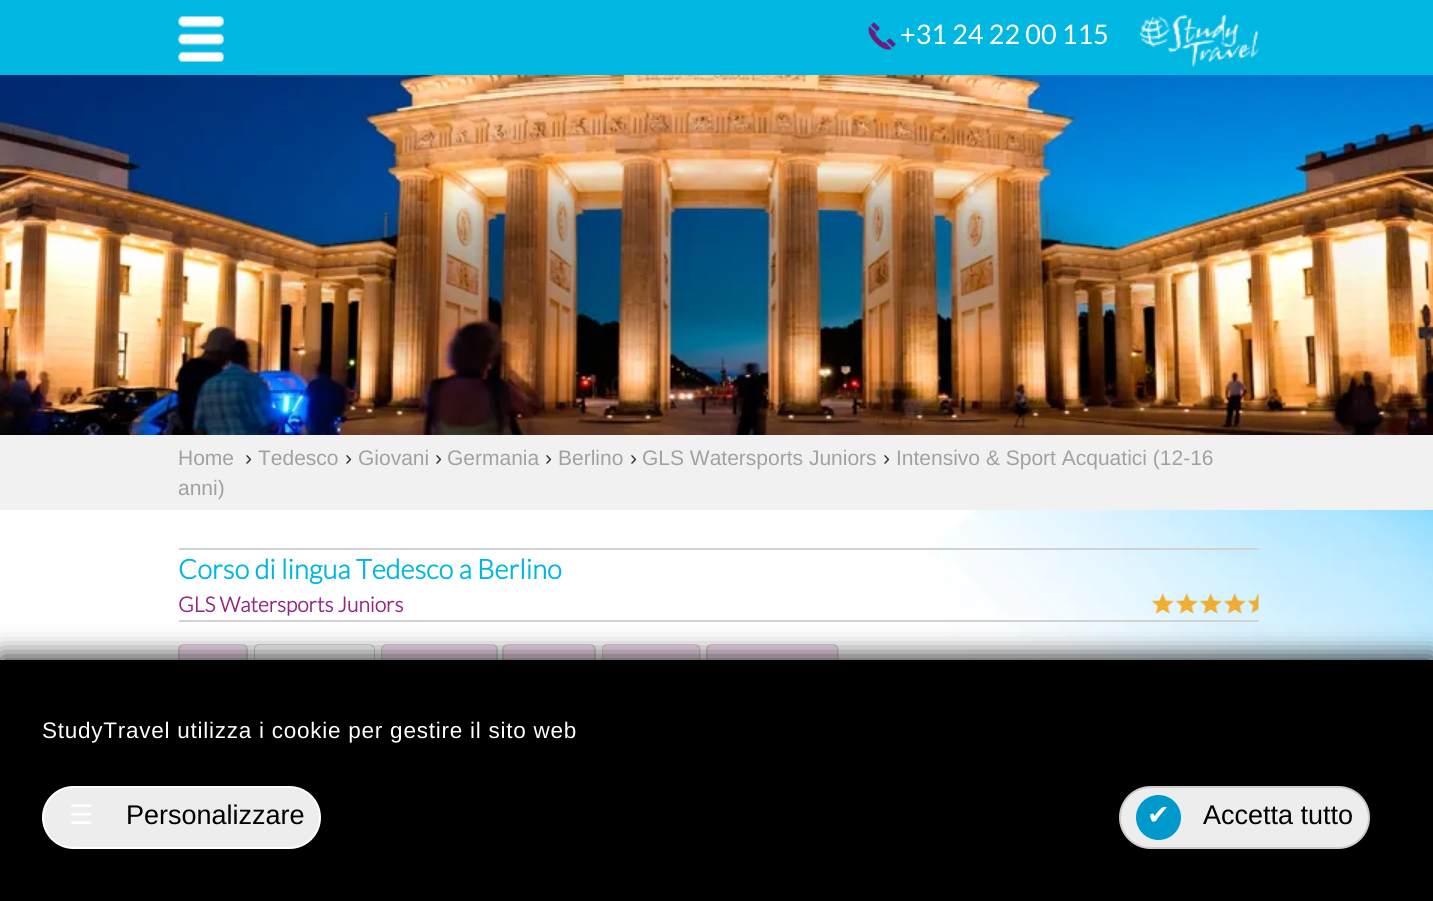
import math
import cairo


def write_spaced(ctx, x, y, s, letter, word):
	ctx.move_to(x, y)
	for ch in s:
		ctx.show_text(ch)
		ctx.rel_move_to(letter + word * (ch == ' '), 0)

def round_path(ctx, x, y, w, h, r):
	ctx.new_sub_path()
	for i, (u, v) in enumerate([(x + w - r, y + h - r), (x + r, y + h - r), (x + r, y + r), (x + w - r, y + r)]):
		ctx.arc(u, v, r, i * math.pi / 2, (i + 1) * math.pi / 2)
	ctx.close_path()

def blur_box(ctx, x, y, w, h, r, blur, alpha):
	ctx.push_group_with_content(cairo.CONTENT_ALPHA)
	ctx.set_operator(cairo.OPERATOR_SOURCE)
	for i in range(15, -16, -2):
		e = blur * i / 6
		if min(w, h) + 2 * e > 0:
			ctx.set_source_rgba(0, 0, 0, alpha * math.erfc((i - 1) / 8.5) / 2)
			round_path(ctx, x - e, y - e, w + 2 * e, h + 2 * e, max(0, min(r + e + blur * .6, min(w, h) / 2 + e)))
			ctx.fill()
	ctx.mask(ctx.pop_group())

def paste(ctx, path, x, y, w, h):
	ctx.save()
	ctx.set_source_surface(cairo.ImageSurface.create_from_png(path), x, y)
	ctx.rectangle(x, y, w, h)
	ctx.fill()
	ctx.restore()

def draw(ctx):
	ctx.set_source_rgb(1, 1, 1)
	ctx.paint()
	paste(ctx, 'media/1.png', 0, 510, 1433, 150)
	ctx.set_source_rgb(0, 0.718, 0.886)
	ctx.rectangle(0, 0, 1433, 75)
	ctx.fill()
	paste(ctx, 'media/2.png', 178, 16, 46, 46)
	paste(ctx, 'media/3.png', 868, 22, 28, 28)
	ctx.select_font_face('Lato')
	ctx.set_font_size(27)
	ctx.set_source_rgb(1, 1, 1)
	ctx.move_to(900, 44)
	ctx.show_text('+31 24 22 00 115')
	paste(ctx, 'media/4.png', 1140, 15, 119, 53)
	paste(ctx, 'media/5.png', 0, 75, 1433, 360)
	ctx.set_source_rgb(0.945, 0.945, 0.945)
	ctx.rectangle(0, 435, 1433, 75)
	ctx.fill()
	ctx.select_font_face('Liberation Sans')
	ctx.set_font_size(21)
	ctx.set_source_rgb(0.627, 0.631, 0.639)
	ctx.move_to(178, 465)
	ctx.show_text('Home')
	ctx.set_source_rgb(0.2, 0.2, 0.2)
	ctx.move_to(245, 465)
	ctx.show_text('›')
	ctx.set_source_rgb(0.627, 0.631, 0.639)
	ctx.move_to(258, 465)
	ctx.show_text('Tedesco')
	ctx.set_source_rgb(0.2, 0.2, 0.2)
	ctx.move_to(345, 465)
	ctx.show_text('›')
	ctx.set_source_rgb(0.627, 0.631, 0.639)
	ctx.move_to(358, 465)
	ctx.show_text('Giovani')
	ctx.set_source_rgb(0.2, 0.2, 0.2)
	ctx.move_to(435, 465)
	ctx.show_text('›')
	ctx.set_source_rgb(0.627, 0.631, 0.639)
	ctx.move_to(447, 465)
	ctx.show_text('Germania')
	ctx.set_source_rgb(0.2, 0.2, 0.2)
	ctx.move_to(545, 465)
	ctx.show_text('›')
	ctx.set_source_rgb(0.627, 0.631, 0.639)
	ctx.move_to(558, 465)
	ctx.show_text('Berlino')
	ctx.set_source_rgb(0.2, 0.2, 0.2)
	ctx.move_to(630, 465)
	ctx.show_text('›')
	ctx.set_source_rgb(0.627, 0.631, 0.639)
	ctx.move_to(642, 465)
	ctx.show_text('GLS Watersports Juniors')
	ctx.set_source_rgb(0.2, 0.2, 0.2)
	ctx.move_to(883, 465)
	ctx.show_text('›')
	ctx.set_source_rgb(0.627, 0.631, 0.639)
	ctx.move_to(896, 465)
	ctx.show_text('Intensivo & Sport Acquatici (12-16')
	ctx.move_to(178, 495)
	ctx.show_text('anni)')
	ctx.set_source_rgb(0.82, 0.824, 0.831)
	ctx.rectangle(179, 548, 1080, 2)
	ctx.fill()
	ctx.rectangle(179, 620, 1080, 2)
	ctx.fill()
	ctx.select_font_face('Lato', cairo.FONT_SLANT_NORMAL, cairo.FONT_WEIGHT_BOLD)
	ctx.set_font_size(27.25)
	ctx.set_source_rgb(0, 0.718, 0.886)
	ctx.move_to(178, 579)
	ctx.show_text('Corso di lingua Tedesco a Berlino')
	ctx.set_font_size(21)
	ctx.set_source_rgb(0.576, 0.149, 0.506)
	ctx.move_to(178, 612)
	ctx.show_text('GLS Watersports Juniors')
	paste(ctx, 'media/6.png', 1151, 593, 23, 21)
	paste(ctx, 'media/7.png', 1175, 593, 23, 21)
	paste(ctx, 'media/8.png', 1199, 593, 23, 21)
	paste(ctx, 'media/9.png', 1223, 593, 23, 21)
	paste(ctx, 'media/10.png', 1247, 593, 12, 21)
	ctx.set_source_rgb(0.973, 0.878, 0.957)
	ctx.new_path()
	ctx.move_to(185, 644)
	ctx.line_to(242, 644)
	ctx.curve_to(245.5, 644, 248, 646.5, 248, 650)
	ctx.line_to(248, 686)
	ctx.line_to(179, 686)
	ctx.line_to(179, 650)
	ctx.curve_to(179, 646.5, 181.5, 644, 185, 644)
	ctx.close_path()
	ctx.fill()
	ctx.set_source_rgb(0.82, 0.824, 0.831)
	ctx.set_fill_rule(cairo.FILL_RULE_EVEN_ODD)
	ctx.new_path()
	ctx.move_to(184, 644)
	ctx.line_to(242, 644)
	ctx.curve_to(245, 644, 248, 646, 248, 650)
	ctx.line_to(248, 686)
	ctx.line_to(178, 686)
	ctx.line_to(178, 650)
	ctx.curve_to(178, 646, 181, 644, 184, 644)
	ctx.close_path()
	ctx.move_to(184, 645)
	ctx.line_to(242, 645)
	ctx.curve_to(244, 645, 246, 647, 246, 650)
	ctx.line_to(246, 686)
	ctx.line_to(180, 686)
	ctx.line_to(180, 650)
	ctx.curve_to(180, 647, 182, 645, 184, 645)
	ctx.close_path()
	ctx.fill()
	ctx.new_path()
	ctx.move_to(260, 644)
	ctx.line_to(369, 644)
	ctx.curve_to(372, 644, 375, 646, 375, 650)
	ctx.line_to(375, 687)
	ctx.line_to(254, 687)
	ctx.line_to(254, 650)
	ctx.curve_to(254, 646, 256, 644, 260, 644)
	ctx.close_path()
	ctx.move_to(260, 645)
	ctx.line_to(369, 645)
	ctx.curve_to(371, 645, 374, 647, 374, 650)
	ctx.line_to(374, 687)
	ctx.line_to(255, 687)
	ctx.line_to(255, 650)
	ctx.curve_to(255, 647, 257, 645, 260, 645)
	ctx.close_path()
	ctx.fill()
	ctx.set_source_rgb(0.973, 0.878, 0.957)
	ctx.new_path()
	ctx.move_to(387, 644)
	ctx.line_to(492, 644)
	ctx.curve_to(495.5, 644, 498, 646.5, 498, 650)
	ctx.line_to(498, 686)
	ctx.line_to(381, 686)
	ctx.line_to(381, 650)
	ctx.curve_to(381, 646.5, 383.5, 644, 387, 644)
	ctx.close_path()
	ctx.fill()
	ctx.set_source_rgb(0.82, 0.824, 0.831)
	ctx.new_path()
	ctx.move_to(387, 644)
	ctx.line_to(492, 644)
	ctx.curve_to(495, 644, 498, 646, 498, 650)
	ctx.line_to(498, 686)
	ctx.line_to(381, 686)
	ctx.line_to(381, 650)
	ctx.curve_to(381, 646, 384, 644, 387, 644)
	ctx.close_path()
	ctx.move_to(387, 645)
	ctx.line_to(492, 645)
	ctx.curve_to(494, 645, 496, 647, 496, 650)
	ctx.line_to(496, 686)
	ctx.line_to(382, 686)
	ctx.line_to(382, 650)
	ctx.curve_to(382, 647, 385, 645, 387, 645)
	ctx.close_path()
	ctx.fill()
	ctx.set_source_rgb(0.973, 0.878, 0.957)
	ctx.new_path()
	ctx.move_to(509, 644)
	ctx.line_to(590, 644)
	ctx.curve_to(593.5, 644, 596, 646.5, 596, 650)
	ctx.line_to(596, 686)
	ctx.line_to(503, 686)
	ctx.line_to(503, 650)
	ctx.curve_to(503, 646.5, 505.5, 644, 509, 644)
	ctx.close_path()
	ctx.fill()
	ctx.set_source_rgb(0.82, 0.824, 0.831)
	ctx.new_path()
	ctx.move_to(508, 644)
	ctx.line_to(590, 644)
	ctx.curve_to(593, 644, 596, 646, 596, 650)
	ctx.line_to(596, 686)
	ctx.line_to(502, 686)
	ctx.line_to(502, 650)
	ctx.curve_to(502, 646, 505, 644, 508, 644)
	ctx.close_path()
	ctx.move_to(508, 645)
	ctx.line_to(590, 645)
	ctx.curve_to(592, 645, 594, 647, 594, 650)
	ctx.line_to(594, 686)
	ctx.line_to(504, 686)
	ctx.line_to(504, 650)
	ctx.curve_to(504, 647, 506, 645, 508, 645)
	ctx.close_path()
	ctx.fill()
	ctx.set_source_rgb(0.973, 0.878, 0.957)
	ctx.new_path()
	ctx.move_to(608, 644)
	ctx.line_to(695, 644)
	ctx.curve_to(698.5, 644, 701, 646.5, 701, 650)
	ctx.line_to(701, 686)
	ctx.line_to(602, 686)
	ctx.line_to(602, 650)
	ctx.curve_to(602, 646.5, 604.5, 644, 608, 644)
	ctx.close_path()
	ctx.fill()
	ctx.set_source_rgb(0.82, 0.824, 0.831)
	ctx.new_path()
	ctx.move_to(608, 644)
	ctx.line_to(694, 644)
	ctx.curve_to(698, 644, 700, 646, 700, 650)
	ctx.line_to(700, 686)
	ctx.line_to(602, 686)
	ctx.line_to(602, 650)
	ctx.curve_to(602, 646, 604, 644, 608, 644)
	ctx.close_path()
	ctx.move_to(608, 645)
	ctx.line_to(694, 645)
	ctx.curve_to(697, 645, 699, 647, 699, 650)
	ctx.line_to(699, 686)
	ctx.line_to(603, 686)
	ctx.line_to(603, 650)
	ctx.curve_to(603, 647, 605, 645, 608, 645)
	ctx.close_path()
	ctx.fill()
	ctx.set_source_rgb(0.973, 0.878, 0.957)
	ctx.new_path()
	ctx.move_to(713, 644)
	ctx.line_to(833, 644)
	ctx.curve_to(836.5, 644, 839, 646.5, 839, 650)
	ctx.line_to(839, 686)
	ctx.line_to(707, 686)
	ctx.line_to(707, 650)
	ctx.curve_to(707, 646.5, 709.5, 644, 713, 644)
	ctx.close_path()
	ctx.fill()
	ctx.set_source_rgb(0.82, 0.824, 0.831)
	ctx.new_path()
	ctx.move_to(712, 644)
	ctx.line_to(832, 644)
	ctx.curve_to(836, 644, 838, 646, 838, 650)
	ctx.line_to(838, 686)
	ctx.line_to(706, 686)
	ctx.line_to(706, 650)
	ctx.curve_to(706, 646, 709, 644, 712, 644)
	ctx.close_path()
	ctx.move_to(712, 645)
	ctx.line_to(832, 645)
	ctx.curve_to(835, 645, 837, 647, 837, 650)
	ctx.line_to(837, 686)
	ctx.line_to(708, 686)
	ctx.line_to(708, 650)
	ctx.curve_to(708, 647, 710, 645, 712, 645)
	ctx.close_path()
	ctx.fill()
	ctx.set_source_rgb(0, 0, 0)
	blur_box(ctx, 0, 656, 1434, 241, 0, 13, 0.8)
	ctx.set_source_rgb(0, 0, 0)
	ctx.rectangle(0, 660, 1433, 241)
	ctx.fill()
	ctx.select_font_face('Liberation Sans')
	ctx.set_font_size(22.5)
	ctx.set_source_rgb(1, 1, 1)
	write_spaced(ctx, 42, 738, 'StudyTravel utilizza i cookie per gestire il sito web', 0.75, 0)
	ctx.set_source_rgb(0.929, 0.929, 0.929)
	round_path(ctx, 43, 787, 277, 61, 30.5)
	ctx.fill_preserve()
	ctx.set_source_rgb(1, 1, 1)
	ctx.stroke()
	ctx.select_font_face('DejaVu Sans')
	ctx.set_font_size(27)
	ctx.move_to(69, 824)
	ctx.show_text('☰')
	ctx.select_font_face('Liberation Sans')
	ctx.set_source_rgb(0, 0, 0)
	ctx.move_to(126, 824)
	ctx.show_text('Personalizzare')
	ctx.set_source_rgb(0.929, 0.929, 0.929)
	round_path(ctx, 1120, 787, 249, 61, 30.5)
	ctx.fill_preserve()
	ctx.set_source_rgb(0.8, 0.8, 0.8)
	ctx.stroke()
	ctx.set_source_rgb(0, 0.6, 0.8)
	ctx.arc(1158.5, 817.5, 22.5, 0, 2 * math.pi)
	ctx.fill()
	ctx.select_font_face('DejaVu Sans')
	ctx.set_source_rgb(1, 1, 1)
	ctx.move_to(1147, 824)
	ctx.show_text('✔')
	ctx.select_font_face('Liberation Sans')
	ctx.set_source_rgb(0, 0, 0)
	ctx.move_to(1203, 824)
	ctx.show_text('Accetta tutto')


surface = cairo.ImageSurface(cairo.FORMAT_RGB24, 1433, 901)
ctx = cairo.Context(surface)
options = cairo.FontOptions()
options.set_hint_metrics(cairo.HINT_METRICS_OFF)
options.set_hint_style(cairo.HINT_STYLE_NONE)
ctx.set_font_options(options)
ctx.set_miter_limit(4)
draw(ctx)
surface.write_to_png('image.png')
